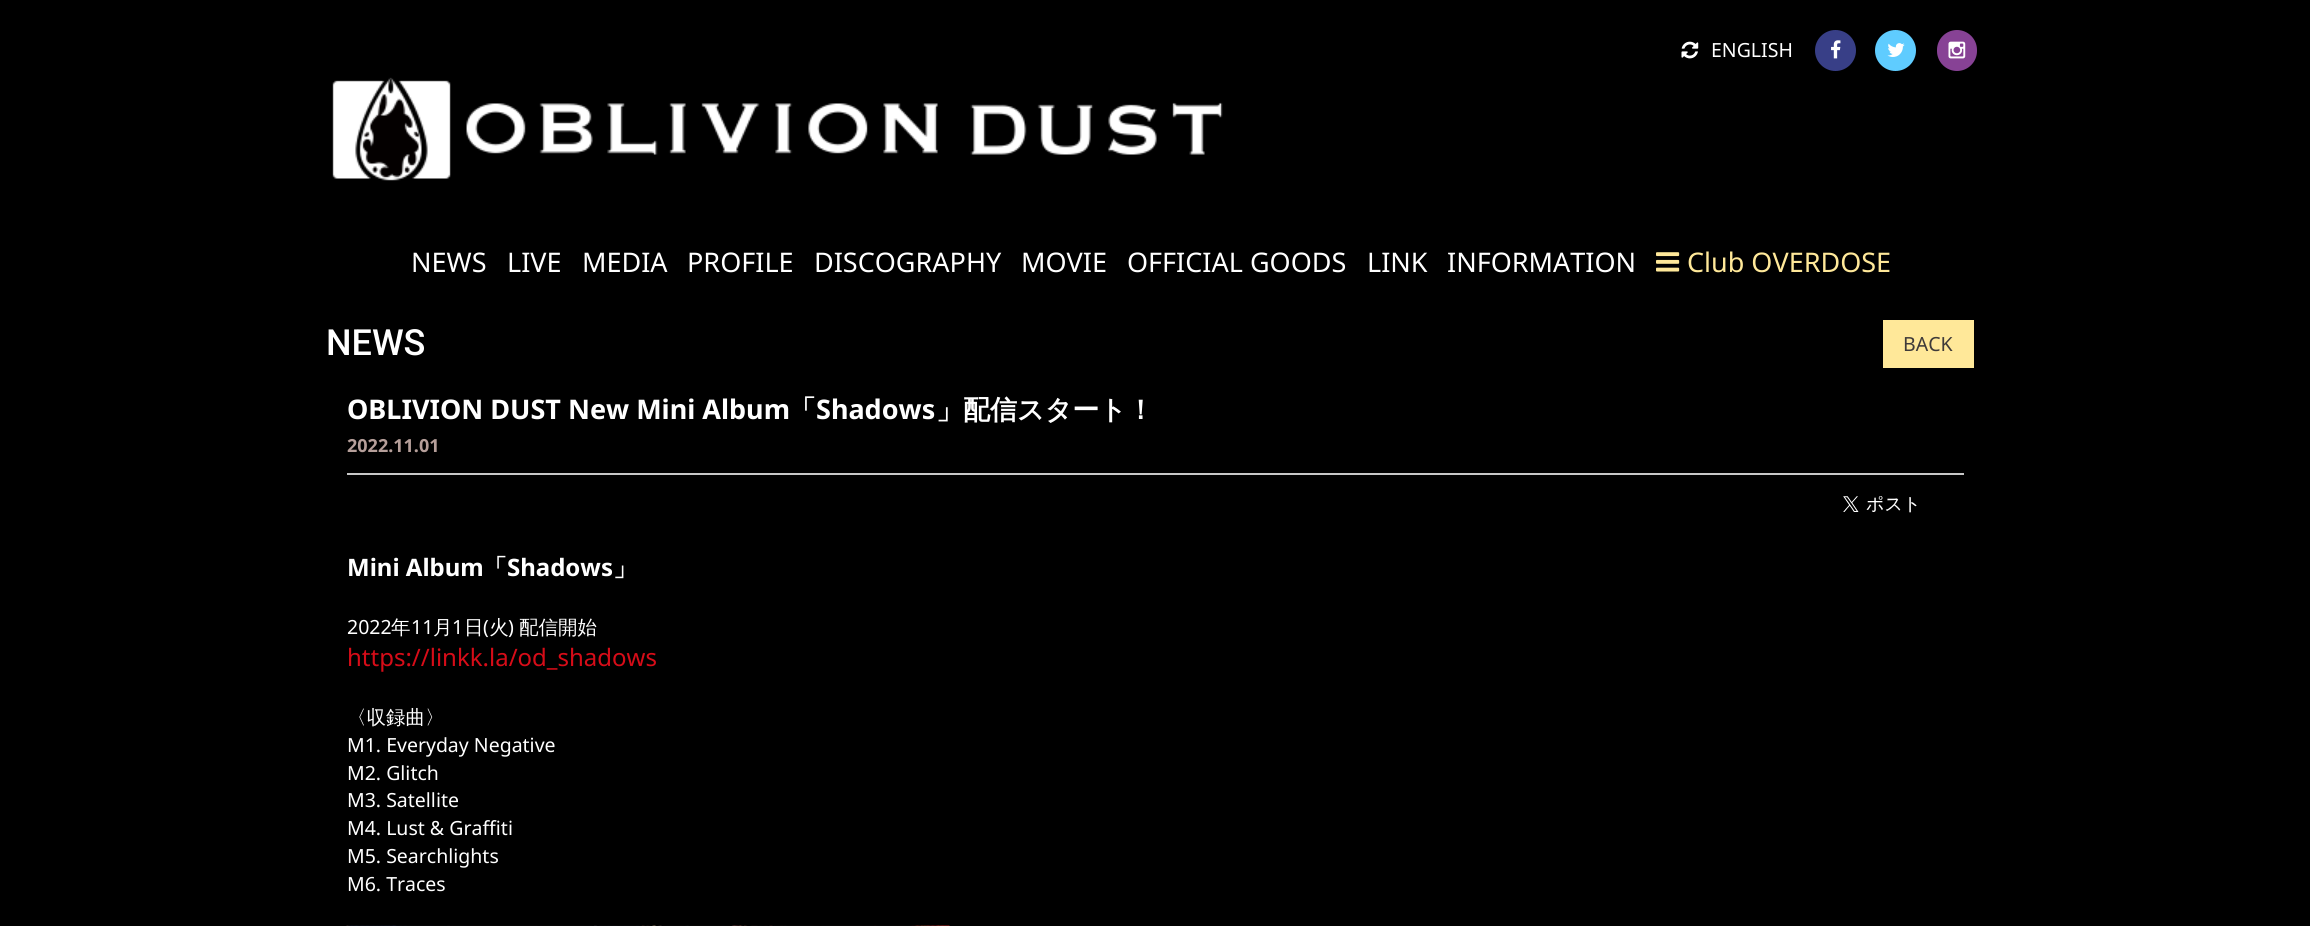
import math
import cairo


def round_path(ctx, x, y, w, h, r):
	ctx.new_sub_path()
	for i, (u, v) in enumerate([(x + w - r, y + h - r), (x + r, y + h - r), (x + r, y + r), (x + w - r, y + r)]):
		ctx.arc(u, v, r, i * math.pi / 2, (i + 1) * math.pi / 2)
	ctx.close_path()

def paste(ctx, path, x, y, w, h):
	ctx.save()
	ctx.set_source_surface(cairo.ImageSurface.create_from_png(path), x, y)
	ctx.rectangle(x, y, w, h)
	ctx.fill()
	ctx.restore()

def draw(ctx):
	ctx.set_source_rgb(0, 0, 0)
	ctx.paint()
	paste(ctx, 'media/1.png', 1681, 41, 18, 18)
	ctx.select_font_face('Noto Sans')
	ctx.set_font_size(19.5)
	ctx.set_source_rgb(1, 1, 1)
	ctx.move_to(1711, 57)
	ctx.show_text('ENGLISH')
	ctx.set_source_rgb(0.22, 0.247, 0.529)
	ctx.new_path()
	ctx.arc(1835.5, 50.5, 20.5, 0, 2 * math.pi)
	ctx.fill()
	paste(ctx, 'media/2.png', 1831, 40, 10, 19)
	ctx.set_source_rgb(0.373, 0.8, 1)
	ctx.arc(1895.5, 50.5, 20.5, 0, 2 * math.pi)
	ctx.fill()
	paste(ctx, 'media/3.png', 1887, 43, 18, 14)
	ctx.set_source_rgb(0.529, 0.259, 0.584)
	round_path(ctx, 1937, 30, 40, 41, 20)
	ctx.fill()
	paste(ctx, 'media/4.png', 1948, 41, 18, 18)
	paste(ctx, 'media/5.png', 332, 77, 891, 104)
	ctx.set_font_size(27)
	ctx.set_source_rgb(1, 1, 1)
	for x, y, s in [
		(411, 272, 'NEWS'),
		(507, 272, 'LIVE'),
		(582, 272, 'MEDIA'),
		(687, 272, 'PROFILE'),
		(814, 272, 'DISCOGRAPHY'),
		(1021, 272, 'MOVIE'),
		(1127, 272, 'OFFICIAL GOODS'),
		(1367, 272, 'LINK'),
		(1447, 272, 'INFORMATION'),
	]:
		ctx.move_to(x, y)
		ctx.show_text(s)
	paste(ctx, 'media/6.png', 1656, 252, 24, 20)
	ctx.set_source_rgb(1, 0.91, 0.6)
	ctx.move_to(1687, 272)
	ctx.show_text('Club OVERDOSE')
	ctx.select_font_face('Roboto Medium')
	ctx.set_font_size(36)
	ctx.set_source_rgb(1, 1, 1)
	ctx.move_to(326, 355)
	ctx.show_text('NEWS')
	ctx.set_source_rgb(1, 0.91, 0.6)
	ctx.rectangle(1883, 320, 91, 48)
	ctx.fill()
	ctx.select_font_face('Noto Sans')
	ctx.set_font_size(19.5)
	ctx.set_source_rgb(0.247, 0.231, 0.227)
	ctx.move_to(1903, 351)
	ctx.show_text('BACK')
	ctx.select_font_face('Noto Sans', cairo.FONT_SLANT_NORMAL, cairo.FONT_WEIGHT_BOLD)
	ctx.set_font_size(27)
	ctx.set_source_rgb(1, 1, 1)
	ctx.move_to(347, 419)
	ctx.show_text('OBLIVION DUST New Mini Album')
	ctx.select_font_face('WenQuanYi Zen Hei', cairo.FONT_SLANT_NORMAL, cairo.FONT_WEIGHT_BOLD)
	ctx.move_to(789, 419)
	ctx.show_text('「')
	ctx.select_font_face('Noto Sans', cairo.FONT_SLANT_NORMAL, cairo.FONT_WEIGHT_BOLD)
	ctx.move_to(816, 419)
	ctx.show_text('Shadows')
	ctx.select_font_face('WenQuanYi Zen Hei', cairo.FONT_SLANT_NORMAL, cairo.FONT_WEIGHT_BOLD)
	ctx.move_to(936, 419)
	ctx.show_text('」配信スタート！')
	ctx.select_font_face('Noto Sans', cairo.FONT_SLANT_NORMAL, cairo.FONT_WEIGHT_BOLD)
	ctx.set_font_size(18)
	ctx.set_source_rgb(0.714, 0.624, 0.604)
	ctx.move_to(347, 452)
	ctx.show_text('2022.11.01')
	ctx.set_source_rgb(0.78, 0.78, 0.78)
	ctx.rectangle(347, 473, 1617, 2)
	ctx.fill()
	paste(ctx, 'media/7.png', 1843, 496, 74, 17)
	ctx.set_font_size(24)
	ctx.set_source_rgb(1, 1, 1)
	ctx.move_to(347, 576)
	ctx.show_text('Mini Album')
	ctx.select_font_face('WenQuanYi Zen Hei', cairo.FONT_SLANT_NORMAL, cairo.FONT_WEIGHT_BOLD)
	ctx.move_to(483, 576)
	ctx.show_text('「')
	ctx.select_font_face('Noto Sans', cairo.FONT_SLANT_NORMAL, cairo.FONT_WEIGHT_BOLD)
	ctx.move_to(507, 576)
	ctx.show_text('Shadows')
	ctx.select_font_face('WenQuanYi Zen Hei', cairo.FONT_SLANT_NORMAL, cairo.FONT_WEIGHT_BOLD)
	ctx.move_to(613, 576)
	ctx.show_text('」')
	ctx.select_font_face('Noto Sans')
	ctx.set_font_size(19.5)
	ctx.move_to(347, 634)
	ctx.show_text('2022')
	ctx.select_font_face('WenQuanYi Zen Hei Medium')
	ctx.move_to(391, 634)
	ctx.show_text('年')
	ctx.select_font_face('Noto Sans')
	ctx.move_to(411, 634)
	ctx.show_text('11')
	ctx.select_font_face('WenQuanYi Zen Hei Medium')
	ctx.move_to(433, 634)
	ctx.show_text('月')
	ctx.select_font_face('Noto Sans')
	ctx.move_to(452, 634)
	ctx.show_text('1')
	ctx.select_font_face('WenQuanYi Zen Hei Medium')
	ctx.move_to(464, 634)
	ctx.show_text('日 火')
	ctx.move_to(519, 634)
	ctx.show_text('配信開始')
	ctx.select_font_face('Noto Sans')
	ctx.move_to(483, 634)
	ctx.show_text('(')
	ctx.move_to(508, 634)
	ctx.show_text(')')
	ctx.set_font_size(24)
	ctx.set_source_rgb(0.843, 0.047, 0.094)
	ctx.move_to(347, 666)
	ctx.show_text('https://linkk.la/od_shadows')
	ctx.select_font_face('WenQuanYi Zen Hei Medium')
	ctx.set_font_size(19.5)
	ctx.set_source_rgb(1, 1, 1)
	ctx.move_to(347, 724)
	ctx.show_text('〈収録曲〉')
	ctx.select_font_face('Noto Sans')
	for x, y, s in [
		(347, 752, 'M1. Everyday Negative'),
		(347, 780, 'M2. Glitch'),
		(347, 807, 'M3. Satellite'),
		(347, 835, 'M4. Lust & Graffiti'),
		(347, 863, 'M5. Searchlights'),
		(347, 891, 'M6. Traces'),
	]:
		ctx.move_to(x, y)
		ctx.show_text(s)
	paste(ctx, 'media/8.png', 346, 925, 604, 1)


surface = cairo.ImageSurface(cairo.FORMAT_RGB24, 2310, 926)
ctx = cairo.Context(surface)
options = cairo.FontOptions()
options.set_hint_metrics(cairo.HINT_METRICS_OFF)
options.set_hint_style(cairo.HINT_STYLE_NONE)
ctx.set_font_options(options)
ctx.set_miter_limit(4)
draw(ctx)
surface.write_to_png('image.png')
